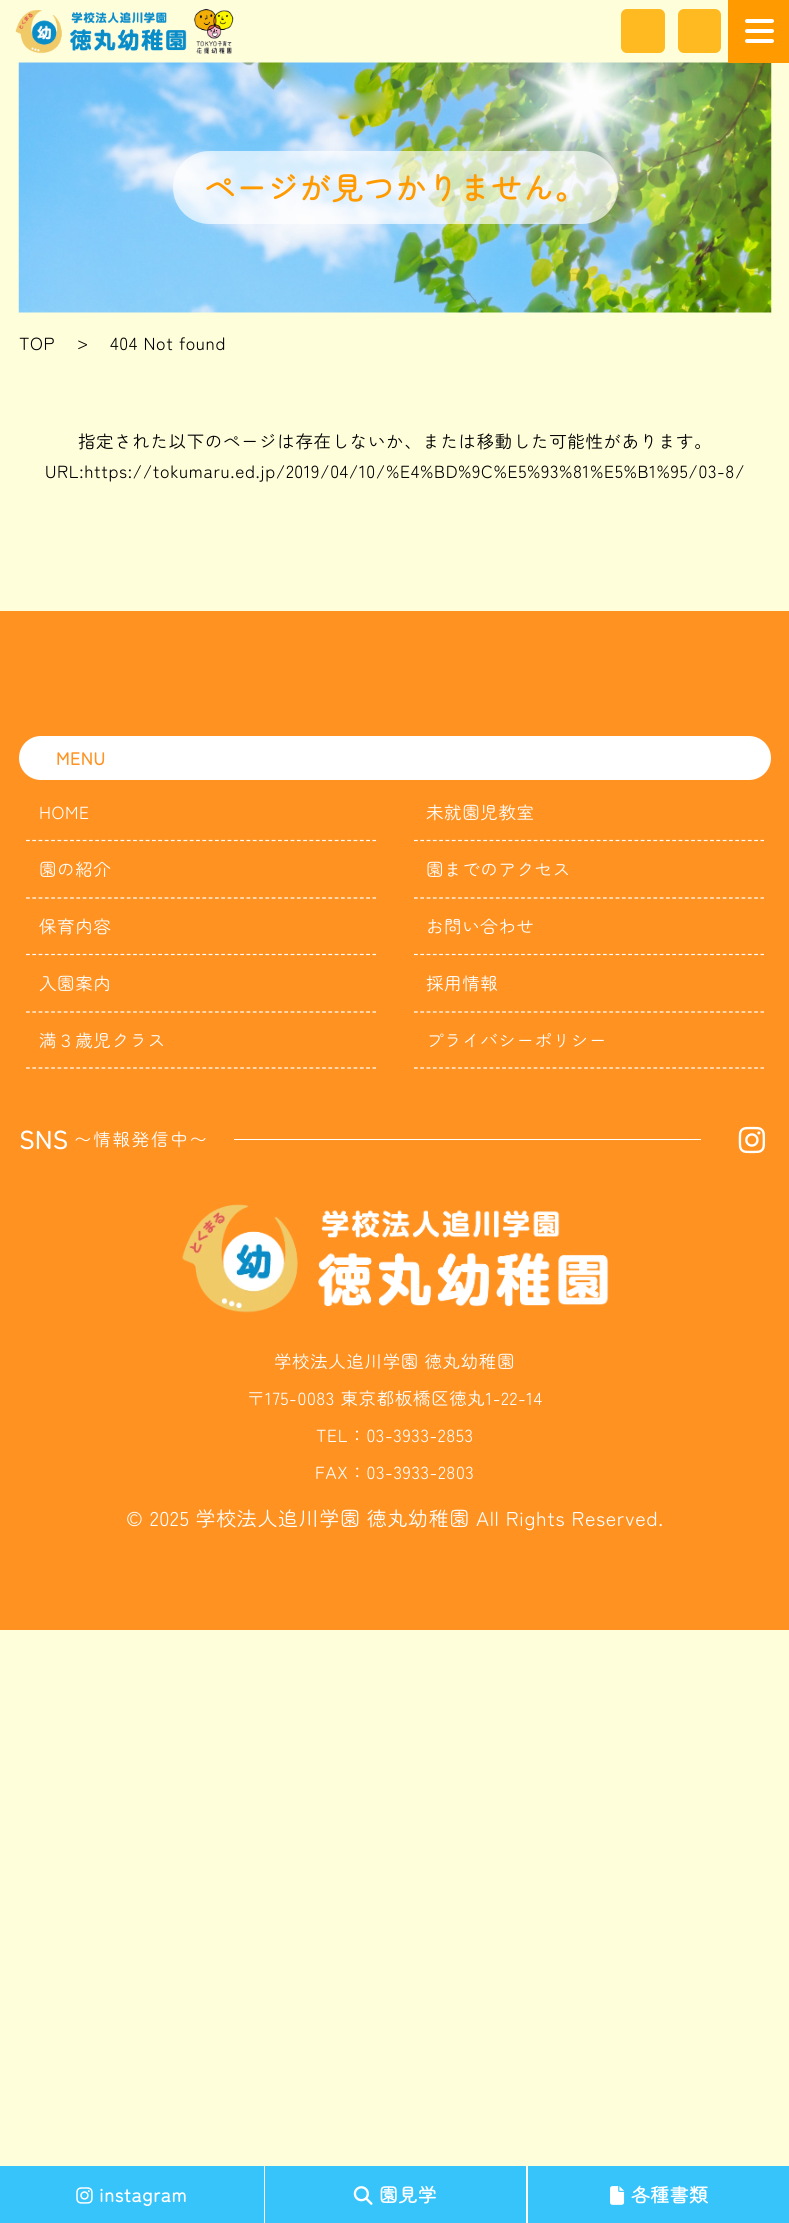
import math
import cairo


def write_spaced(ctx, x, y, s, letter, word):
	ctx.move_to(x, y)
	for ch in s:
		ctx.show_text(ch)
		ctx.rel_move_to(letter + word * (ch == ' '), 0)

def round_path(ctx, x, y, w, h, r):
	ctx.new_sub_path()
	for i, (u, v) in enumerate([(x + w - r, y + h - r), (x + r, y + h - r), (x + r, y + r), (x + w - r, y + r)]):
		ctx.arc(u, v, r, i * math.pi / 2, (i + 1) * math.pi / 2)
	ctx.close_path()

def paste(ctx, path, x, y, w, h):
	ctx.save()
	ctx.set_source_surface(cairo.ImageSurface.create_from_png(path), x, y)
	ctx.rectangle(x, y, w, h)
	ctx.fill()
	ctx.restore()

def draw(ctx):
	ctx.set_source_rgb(1, 0.996, 0.859)
	ctx.paint()
	paste(ctx, 'media/1.png', 15, 8, 219, 46)
	ctx.set_source_rgb(1, 0.729, 0.129)
	round_path(ctx, 621, 9, 44, 44, 6)
	ctx.fill()
	round_path(ctx, 678, 9, 43, 44, 6)
	ctx.fill()
	paste(ctx, 'media/2.png', 18, 62, 754, 251)
	ctx.set_source_rgb(1, 0.608, 0)
	ctx.rectangle(728, 0, 61, 63)
	ctx.fill()
	ctx.set_source_rgb(1, 1, 1)
	round_path(ctx, 745, 19, 29, 4, 2)
	ctx.fill()
	round_path(ctx, 745, 29, 29, 4, 2)
	ctx.fill()
	round_path(ctx, 745, 39, 29, 4, 2)
	ctx.fill()
	ctx.set_source_rgba(1, 1, 1, 0.66)
	round_path(ctx, 173, 151, 445, 73, 36.5)
	ctx.fill()
	ctx.select_font_face('Zen Maru Gothic', cairo.FONT_SLANT_NORMAL, cairo.FONT_WEIGHT_BOLD)
	ctx.set_font_size(31.25)
	ctx.set_source_rgb(1, 0.608, 0)
	write_spaced(ctx, 204, 200, 'ページが見つかりません。', 0.62, 0)
	ctx.select_font_face('Zen Maru Gothic')
	ctx.set_font_size(17.5)
	ctx.set_source_rgb(0, 0, 0)
	for x, y, s in [
		(19, 350, 'TOP'),
		(77, 349, '>'),
		(110, 350, '404 Not found'),
		(78, 448, '指定された以下のページは存在しないか、または移動した可能性があります。'),
		(45, 478, 'URL:https://tokumaru.ed.jp/2019/04/10/%E4%BD%9C%E5%93%81%E5%B1%95/03-8/'),
	]:
		write_spaced(ctx, x, y, s, 0.62, 0)
	ctx.set_source_rgb(1, 0.573, 0.129)
	ctx.rectangle(0, 611, 789, 1019)
	ctx.fill()
	ctx.set_source_rgb(1, 1, 1)
	round_path(ctx, 19, 736, 752, 44, 22)
	ctx.fill()
	ctx.select_font_face('Zen Maru Gothic', cairo.FONT_SLANT_NORMAL, cairo.FONT_WEIGHT_BOLD)
	ctx.set_source_rgb(1, 0.573, 0.129)
	write_spaced(ctx, 56, 765, 'MENU', 0.62, 0)
	ctx.new_path()
	ctx.move_to(26, 840.5)
	ctx.line_to(376, 840.5)
	ctx.set_source_rgb(1, 1, 1)
	ctx.set_line_width(1.2)
	ctx.set_dash([3.75, 2.55])
	ctx.stroke()
	ctx.select_font_face('Zen Maru Gothic')
	write_spaced(ctx, 39, 819, 'HOME', 0.62, 0)
	ctx.new_path()
	ctx.move_to(26, 898)
	ctx.line_to(376, 898)
	ctx.stroke()
	write_spaced(ctx, 39, 876, '園の紹介', 0.62, 0)
	ctx.new_path()
	ctx.move_to(26, 954.5)
	ctx.line_to(376, 954.5)
	ctx.stroke()
	write_spaced(ctx, 39, 933, '保育内容', 0.62, 0)
	ctx.new_path()
	ctx.move_to(26, 1012)
	ctx.line_to(376, 1012)
	ctx.stroke()
	write_spaced(ctx, 39, 990, '入園案内', 0.62, 0)
	ctx.new_path()
	ctx.move_to(26, 1068)
	ctx.line_to(376, 1068)
	ctx.stroke()
	write_spaced(ctx, 39, 1047, '満３歳児クラス', 0.62, 0)
	ctx.new_path()
	ctx.move_to(414, 840.5)
	ctx.line_to(764, 840.5)
	ctx.stroke()
	write_spaced(ctx, 426, 819, '未就園児教室', 0.62, 0)
	ctx.new_path()
	ctx.move_to(414, 898)
	ctx.line_to(764, 898)
	ctx.stroke()
	write_spaced(ctx, 426, 876, '園までのアクセス', 0.62, 0)
	ctx.new_path()
	ctx.move_to(414, 954.5)
	ctx.line_to(764, 954.5)
	ctx.stroke()
	write_spaced(ctx, 426, 933, 'お問い合わせ', 0.62, 0)
	ctx.new_path()
	ctx.move_to(414, 1012)
	ctx.line_to(764, 1012)
	ctx.stroke()
	write_spaced(ctx, 426, 990, '採用情報', 0.62, 0)
	ctx.new_path()
	ctx.move_to(414, 1068)
	ctx.line_to(764, 1068)
	ctx.stroke()
	write_spaced(ctx, 426, 1047, 'プライバシーポリシー', 0.62, 0)
	ctx.select_font_face('Zen Maru Gothic', cairo.FONT_SLANT_NORMAL, cairo.FONT_WEIGHT_BOLD)
	ctx.set_font_size(25)
	write_spaced(ctx, 19, 1149, 'SNS', 0.62, 0)
	ctx.select_font_face('Zen Maru Gothic')
	ctx.set_font_size(17.5)
	write_spaced(ctx, 74, 1146, '〜情報発信中〜', 1.75, 0)
	ctx.rectangle(234, 1139, 467, 1)
	ctx.fill()
	paste(ctx, 'media/3.png', 738, 1126, 27, 28)
	paste(ctx, 'media/4.png', 182, 1204, 427, 109)
	for x, y, s in [
		(274, 1368, '学校法人追川学園 徳丸幼稚園'),
		(247, 1405, '〒175-0083 東京都板橋区徳丸1-22-14'),
		(316, 1442, 'TEL：03-3933-2853'),
		(315, 1479, 'FAX：03-3933-2803'),
	]:
		write_spaced(ctx, x, y, s, 0.62, 0)
	ctx.set_font_size(20)
	write_spaced(ctx, 126, 1526, '© 2025 学校法人追川学園 徳丸幼稚園 All Rights Reserved.', 0.62, 0)
	ctx.set_source_rgb(0.212, 0.769, 0.984)
	ctx.rectangle(0, 2166, 264, 57)
	ctx.fill()
	paste(ctx, 'media/5.png', 76, 2187, 17, 17)
	ctx.select_font_face('Zen Maru Gothic', cairo.FONT_SLANT_NORMAL, cairo.FONT_WEIGHT_BOLD)
	ctx.set_font_size(18.75)
	ctx.set_source_rgb(1, 1, 1)
	write_spaced(ctx, 99, 2202, 'instagram', 0.62, 0)
	ctx.rectangle(264, 2166, 1, 57)
	ctx.fill()
	ctx.set_source_rgb(0.212, 0.769, 0.984)
	ctx.rectangle(265, 2166, 261, 57)
	ctx.fill()
	paste(ctx, 'media/6.png', 353, 2186, 20, 19)
	ctx.set_source_rgb(1, 1, 1)
	write_spaced(ctx, 379, 2202, '園見学', 0.62, 0)
	ctx.rectangle(526, 2166, 1, 57)
	ctx.fill()
	ctx.set_source_rgb(0.212, 0.769, 0.984)
	ctx.rectangle(528, 2166, 261, 57)
	ctx.fill()
	paste(ctx, 'media/7.png', 610, 2186, 15, 19)
	ctx.set_source_rgb(1, 1, 1)
	write_spaced(ctx, 631, 2202, '各種書類', 0.62, 0)


surface = cairo.ImageSurface(cairo.FORMAT_RGB24, 789, 2223)
ctx = cairo.Context(surface)
options = cairo.FontOptions()
options.set_hint_metrics(cairo.HINT_METRICS_OFF)
options.set_hint_style(cairo.HINT_STYLE_NONE)
ctx.set_font_options(options)
ctx.set_miter_limit(4)
draw(ctx)
surface.write_to_png('image.png')
